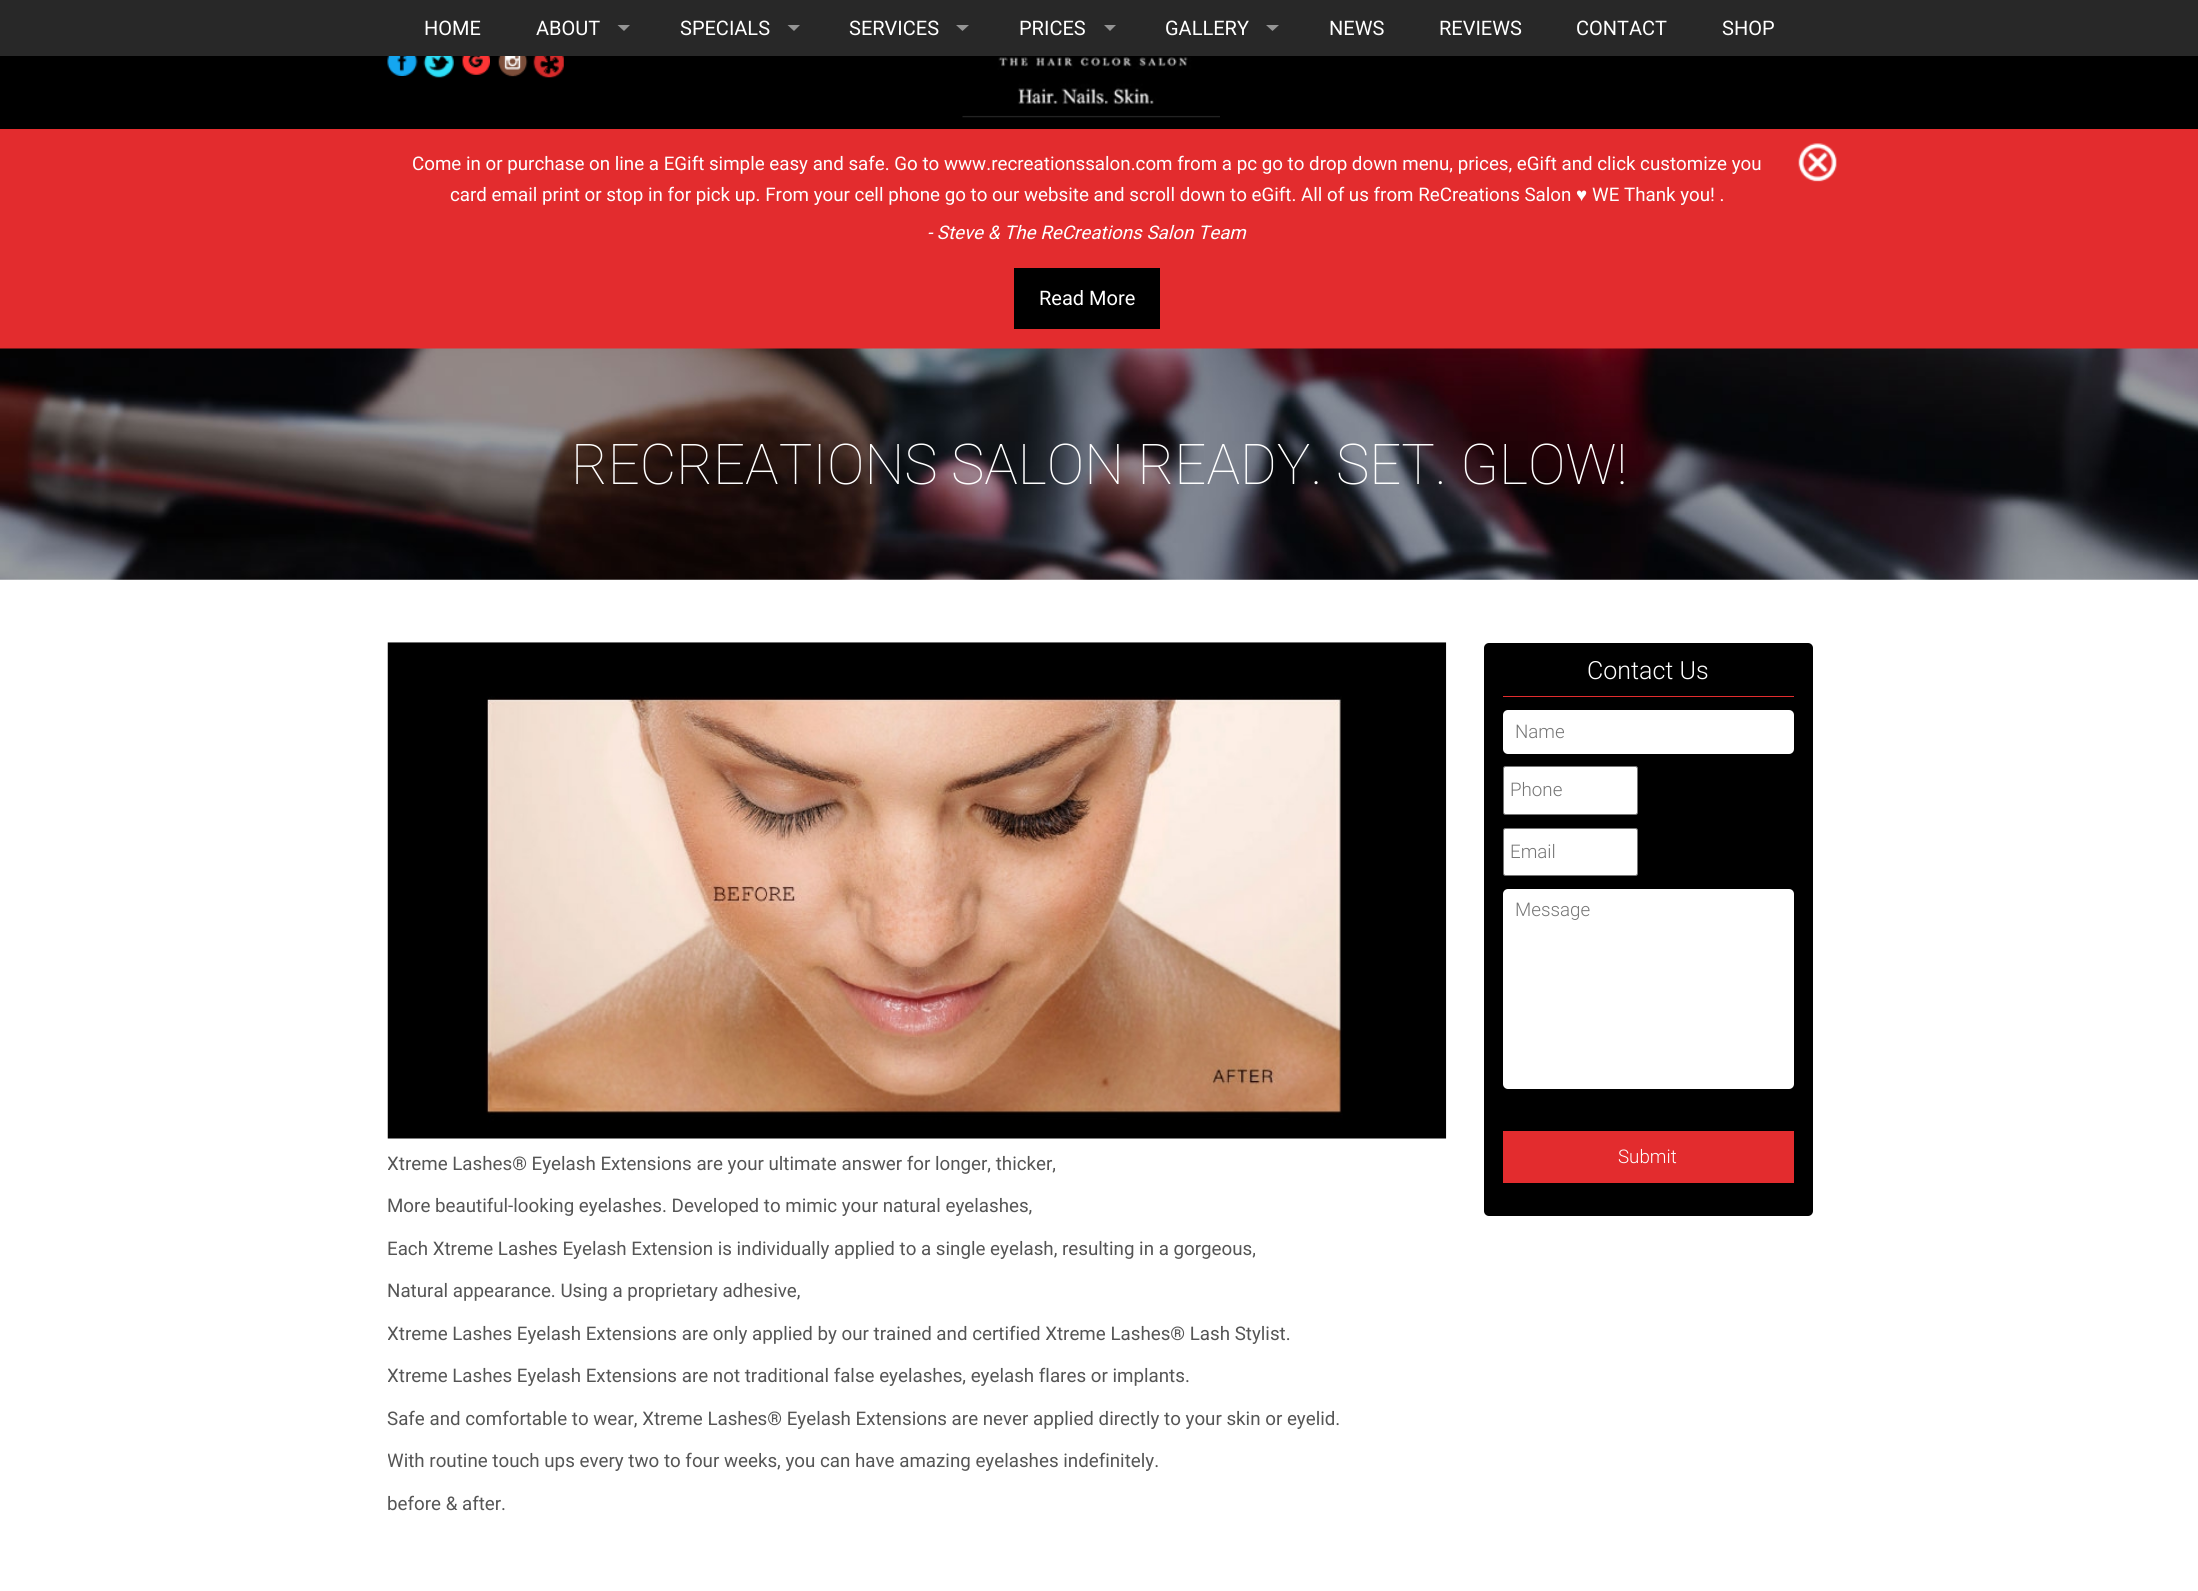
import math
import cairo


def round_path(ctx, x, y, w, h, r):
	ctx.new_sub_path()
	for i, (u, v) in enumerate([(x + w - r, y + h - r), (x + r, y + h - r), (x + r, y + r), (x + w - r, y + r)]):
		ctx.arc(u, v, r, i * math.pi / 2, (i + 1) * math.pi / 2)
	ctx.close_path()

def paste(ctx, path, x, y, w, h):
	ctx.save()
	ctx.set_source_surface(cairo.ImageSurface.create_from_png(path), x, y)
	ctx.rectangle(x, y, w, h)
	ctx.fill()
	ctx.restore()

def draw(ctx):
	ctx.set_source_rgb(1, 1, 1)
	ctx.paint()
	ctx.set_source_rgb(0.157, 0.157, 0.157)
	ctx.rectangle(0, 0, 2198, 56)
	ctx.fill()
	ctx.select_font_face('Roboto')
	ctx.set_font_size(20)
	ctx.set_source_rgb(1, 1, 1)
	ctx.move_to(424, 35)
	ctx.show_text('HOME')
	ctx.move_to(536, 35)
	ctx.show_text('ABOUT')
	ctx.set_source_rgb(0.58, 0.58, 0.58)
	ctx.new_path()
	ctx.move_to(617.5, 25)
	ctx.line_to(630, 25)
	ctx.line_to(624, 31)
	ctx.close_path()
	ctx.fill()
	ctx.set_source_rgb(1, 1, 1)
	ctx.move_to(680, 35)
	ctx.show_text('SPECIALS')
	ctx.set_source_rgb(0.58, 0.58, 0.58)
	ctx.new_path()
	ctx.move_to(787.5, 25)
	ctx.line_to(800, 25)
	ctx.line_to(794, 31)
	ctx.close_path()
	ctx.fill()
	ctx.set_source_rgb(1, 1, 1)
	ctx.move_to(849, 35)
	ctx.show_text('SERVICES')
	ctx.set_source_rgb(0.58, 0.58, 0.58)
	ctx.new_path()
	ctx.move_to(956, 25)
	ctx.line_to(969, 25)
	ctx.line_to(962.5, 31)
	ctx.close_path()
	ctx.fill()
	ctx.set_source_rgb(1, 1, 1)
	ctx.move_to(1019, 35)
	ctx.show_text('PRICES')
	ctx.set_source_rgb(0.58, 0.58, 0.58)
	ctx.new_path()
	ctx.move_to(1104, 25)
	ctx.line_to(1116, 25)
	ctx.line_to(1110, 31)
	ctx.close_path()
	ctx.fill()
	ctx.set_source_rgb(1, 1, 1)
	ctx.move_to(1165, 35)
	ctx.show_text('GALLERY')
	ctx.set_source_rgb(0.58, 0.58, 0.58)
	ctx.new_path()
	ctx.move_to(1266, 25)
	ctx.line_to(1279, 25)
	ctx.line_to(1272.5, 31)
	ctx.close_path()
	ctx.fill()
	ctx.set_source_rgb(1, 1, 1)
	for x, y, s in [
		(1329, 35, 'NEWS'),
		(1439, 35, 'REVIEWS'),
		(1576, 35, 'CONTACT'),
		(1722, 35, 'SHOP'),
	]:
		ctx.move_to(x, y)
		ctx.show_text(s)
	ctx.set_source_rgb(0, 0, 0)
	ctx.rectangle(0, 56, 2198, 73)
	ctx.fill()
	paste(ctx, 'media/1.png', 387, 56, 31, 20)
	paste(ctx, 'media/2.png', 423, 56, 31, 22)
	paste(ctx, 'media/3.png', 462, 56, 28, 19)
	paste(ctx, 'media/4.png', 498, 56, 30, 21)
	paste(ctx, 'media/5.png', 533, 56, 31, 22)
	paste(ctx, 'media/6.png', 962, 56, 258, 62)
	ctx.set_source_rgb(0.89, 0.173, 0.18)
	ctx.rectangle(0, 129, 2198, 220)
	ctx.fill()
	ctx.set_font_size(18.75)
	ctx.set_source_rgb(1, 1, 1)
	ctx.move_to(412, 170)
	ctx.show_text('Come in or purchase on line a EGift simple easy and safe. Go to www.recreationssalon.com from a pc go to drop down menu, prices, eGift and click customize you')
	ctx.move_to(450, 201)
	ctx.show_text('card email print or stop in for pick up. From your cell phone go to our website and scroll down to eGift. All of us from ReCreations Salon')
	ctx.select_font_face('Liberation Sans')
	ctx.move_to(1576, 201)
	ctx.show_text('♥')
	ctx.select_font_face('Roboto')
	ctx.move_to(1592, 201)
	ctx.show_text('WE Thank you! .')
	paste(ctx, 'media/7.png', 1798, 143, 39, 39)
	ctx.select_font_face('Roboto', cairo.FONT_SLANT_ITALIC)
	ctx.move_to(927, 239)
	ctx.show_text('- Steve & The ReCreations Salon Team')
	ctx.set_source_rgb(0, 0, 0)
	ctx.rectangle(1014, 268, 146, 61)
	ctx.fill()
	ctx.select_font_face('Roboto')
	ctx.set_font_size(20)
	ctx.set_source_rgb(1, 1, 1)
	ctx.move_to(1039, 305)
	ctx.show_text('Read More')
	paste(ctx, 'media/8.png', 0, 348, 2198, 232)
	ctx.select_font_face('Roboto Thin')
	ctx.set_font_size(56.25)
	ctx.move_to(571, 484)
	ctx.show_text('RECREATIONS SALON READY. SET. GLOW!')
	ctx.set_source_rgb(0, 0, 0)
	round_path(ctx, 1484, 643, 329, 573, 5)
	ctx.fill()
	ctx.set_source_rgb(0.89, 0.173, 0.18)
	ctx.rectangle(1503, 696, 291, 1)
	ctx.fill()
	ctx.select_font_face('Roboto Light')
	ctx.set_font_size(25)
	ctx.set_source_rgb(1, 1, 1)
	ctx.move_to(1587, 679)
	ctx.show_text('Contact Us')
	round_path(ctx, 1503, 710, 291, 44, 5)
	ctx.fill()
	ctx.set_font_size(18.75)
	ctx.set_source_rgb(0.459, 0.459, 0.459)
	ctx.move_to(1515, 738)
	ctx.show_text('Name')
	ctx.set_source_rgb(1, 1, 1)
	round_path(ctx, 1503.5, 766.5, 134, 48, 2)
	ctx.fill_preserve()
	ctx.set_source_rgb(0.463, 0.463, 0.463)
	ctx.set_line_width(1)
	ctx.stroke()
	ctx.set_source_rgb(0.459, 0.459, 0.459)
	ctx.move_to(1510, 796)
	ctx.show_text('Phone')
	ctx.set_source_rgb(1, 1, 1)
	round_path(ctx, 1503.5, 828.5, 134, 47, 2)
	ctx.fill_preserve()
	ctx.set_source_rgb(0.463, 0.463, 0.463)
	ctx.stroke()
	ctx.set_source_rgb(0.459, 0.459, 0.459)
	ctx.move_to(1510, 858)
	ctx.show_text('Email')
	ctx.set_source_rgb(1, 1, 1)
	round_path(ctx, 1503, 889, 291, 200, 5)
	ctx.fill()
	ctx.set_source_rgb(0.459, 0.459, 0.459)
	ctx.move_to(1515, 916)
	ctx.show_text('Message')
	ctx.set_source_rgb(0.89, 0.173, 0.18)
	ctx.rectangle(1503, 1131, 291, 52)
	ctx.fill()
	ctx.set_source_rgb(1, 1, 1)
	ctx.move_to(1618, 1163)
	ctx.show_text('Submit')
	paste(ctx, 'media/9.png', 387, 642, 1060, 497)
	ctx.save()
	ctx.rectangle(388, 643, 1058, 888)
	ctx.clip()
	ctx.select_font_face('Roboto')
	ctx.set_source_rgb(0.333, 0.333, 0.333)
	ctx.move_to(387, 1170)
	ctx.show_text('Xtreme Lashes® Eyelash Extensions are your ultimate answer for longer, thicker,')
	ctx.restore()
	ctx.select_font_face('Roboto')
	ctx.set_source_rgb(0.333, 0.333, 0.333)
	for x, y, s in [
		(387, 1212, 'More beautiful-looking eyelashes. Developed to mimic your natural eyelashes,'),
		(387, 1255, 'Each Xtreme Lashes Eyelash Extension is individually applied to a single eyelash, resulting in a gorgeous,'),
		(387, 1297, 'Natural appearance. Using a proprietary adhesive,'),
	]:
		ctx.move_to(x, y)
		ctx.show_text(s)
	ctx.save()
	ctx.rectangle(388, 643, 1058, 888)
	ctx.clip()
	ctx.move_to(387, 1340)
	ctx.show_text('Xtreme Lashes Eyelash Extensions are only applied by our trained and certified Xtreme Lashes® Lash Stylist.')
	ctx.move_to(387, 1382)
	ctx.show_text('Xtreme Lashes Eyelash Extensions are not traditional false eyelashes, eyelash flares or implants.')
	ctx.restore()
	ctx.move_to(387, 1425)
	ctx.show_text('Safe and comfortable to wear, Xtreme Lashes® Eyelash Extensions are never applied directly to your skin or eyelid.')
	ctx.save()
	ctx.rectangle(388, 643, 1058, 888)
	ctx.clip()
	ctx.move_to(387, 1467)
	ctx.show_text('With routine touch ups every two to four weeks, you can have amazing eyelashes indefinitely.')
	ctx.restore()
	ctx.move_to(387, 1510)
	ctx.show_text('before & after.')


surface = cairo.ImageSurface(cairo.FORMAT_RGB24, 2198, 1591)
ctx = cairo.Context(surface)
options = cairo.FontOptions()
options.set_hint_metrics(cairo.HINT_METRICS_OFF)
options.set_hint_style(cairo.HINT_STYLE_NONE)
ctx.set_font_options(options)
ctx.set_miter_limit(4)
draw(ctx)
surface.write_to_png('image.png')
